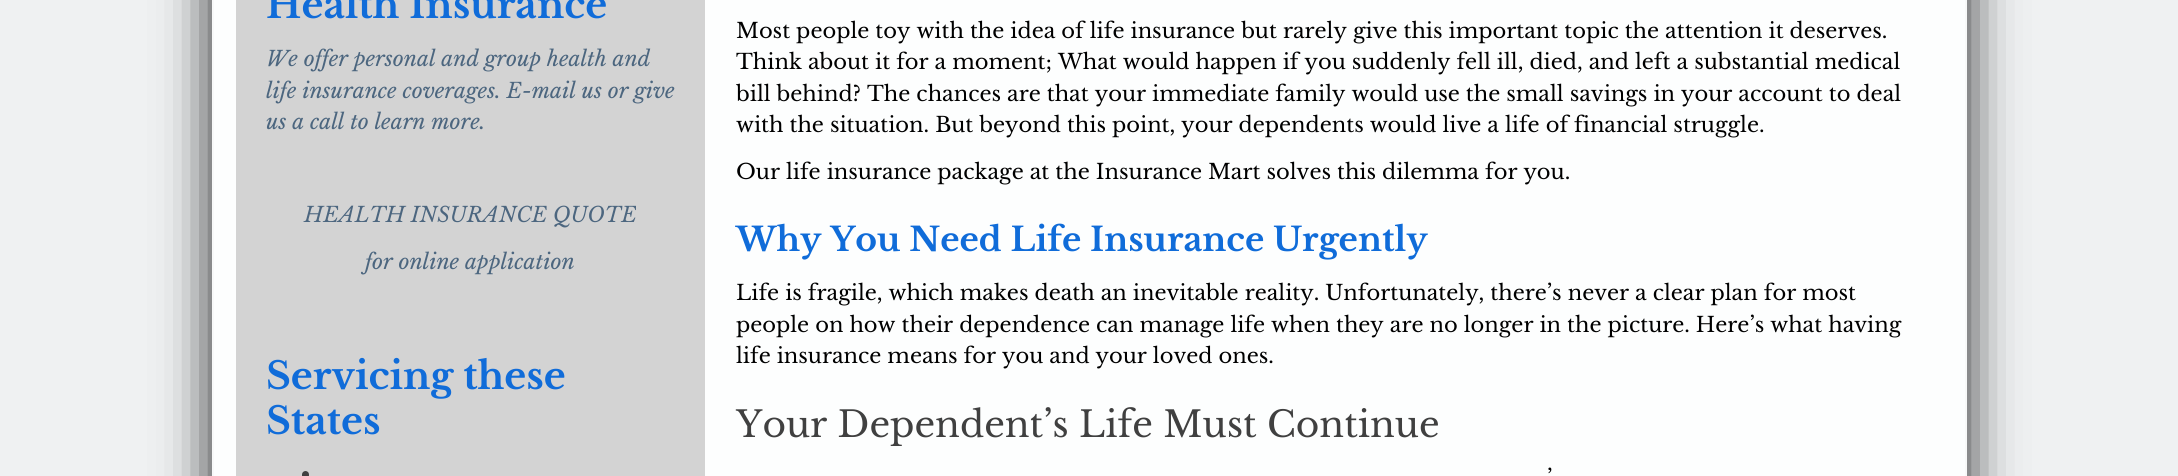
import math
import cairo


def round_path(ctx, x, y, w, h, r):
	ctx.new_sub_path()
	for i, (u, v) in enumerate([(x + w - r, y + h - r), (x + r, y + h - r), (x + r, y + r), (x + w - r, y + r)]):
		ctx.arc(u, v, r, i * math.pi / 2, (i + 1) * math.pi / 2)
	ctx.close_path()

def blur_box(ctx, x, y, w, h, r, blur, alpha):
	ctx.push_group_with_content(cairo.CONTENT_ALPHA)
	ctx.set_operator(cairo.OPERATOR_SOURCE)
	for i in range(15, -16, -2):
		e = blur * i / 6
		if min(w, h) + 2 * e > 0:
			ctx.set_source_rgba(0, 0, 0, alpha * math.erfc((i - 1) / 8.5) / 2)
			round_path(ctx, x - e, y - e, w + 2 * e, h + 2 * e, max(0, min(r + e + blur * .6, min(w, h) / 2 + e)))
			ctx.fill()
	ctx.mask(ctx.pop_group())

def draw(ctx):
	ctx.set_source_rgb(0.937, 0.945, 0.949)
	ctx.paint()
	ctx.set_source_rgb(0, 0, 0)
	blur_box(ctx, 212, -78, 1755, 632, 0, 26, 0.85)
	ctx.set_source_rgb(0.992, 0.996, 0.996)
	ctx.rectangle(213, -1, 1753, 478)
	ctx.fill_preserve()
	ctx.set_source_rgb(0.969, 0.973, 0.973)
	ctx.stroke()
	ctx.set_source_rgb(0.827, 0.827, 0.827)
	ctx.rectangle(236, 0, 469, 476)
	ctx.fill()
	ctx.select_font_face('Libre Baskerville', cairo.FONT_SLANT_NORMAL, cairo.FONT_WEIGHT_BOLD)
	ctx.set_font_size(37.5)
	ctx.set_source_rgb(0.063, 0.424, 0.851)
	ctx.move_to(266, 18)
	ctx.show_text('Health Insurance')
	ctx.select_font_face('Libre Baskerville', cairo.FONT_SLANT_ITALIC)
	ctx.set_font_size(21)
	ctx.set_source_rgb(0.298, 0.4, 0.498)
	for x, y, s in [
		(266, 66, 'We offer personal and group health and'),
		(266, 98, 'life insurance coverages. E-mail us or give'),
		(266, 129, 'us a call to learn more.'),
		(304, 222, 'HEALTH INSURANCE QUOTE'),
		(365, 269, 'for online application'),
	]:
		ctx.move_to(x, y)
		ctx.show_text(s)
	ctx.select_font_face('Libre Baskerville', cairo.FONT_SLANT_NORMAL, cairo.FONT_WEIGHT_BOLD)
	ctx.set_font_size(37.5)
	ctx.set_source_rgb(0.063, 0.424, 0.851)
	ctx.move_to(266, 389)
	ctx.show_text('Servicing these')
	ctx.move_to(266, 434)
	ctx.show_text('States')
	ctx.set_source_rgb(0.251, 0.251, 0.251)
	round_path(ctx, 302, 471, 7, 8, 3.5)
	ctx.fill()
	ctx.select_font_face('Libre Baskerville')
	ctx.set_font_size(21)
	ctx.set_source_rgb(0, 0, 0)
	for x, y, s in [
		(736, 38, 'Most people toy with the idea of life insurance but rarely give this important topic the attention it deserves.'),
		(736, 69, 'Think about it for a moment; What would happen if you suddenly fell ill, died, and left a substantial medical'),
		(736, 101, 'bill behind? The chances are that your immediate family would use the small savings in your account to deal'),
		(736, 132, 'with the situation. But beyond this point, your dependents would live a life of financial struggle.'),
		(736, 179, 'Our life insurance package at the Insurance Mart solves this dilemma for you.'),
	]:
		ctx.move_to(x, y)
		ctx.show_text(s)
	ctx.select_font_face('Libre Baskerville', cairo.FONT_SLANT_NORMAL, cairo.FONT_WEIGHT_BOLD)
	ctx.set_font_size(33)
	ctx.set_source_rgb(0.063, 0.424, 0.851)
	ctx.move_to(736, 251)
	ctx.show_text('Why You Need Life Insurance Urgently')
	ctx.select_font_face('Libre Baskerville')
	ctx.set_font_size(21)
	ctx.set_source_rgb(0, 0, 0)
	for x, y, s in [
		(736, 300, 'Life is fragile, which makes death an inevitable reality. Unfortunately, there’s never a clear plan for most'),
		(736, 332, 'people on how their dependence can manage life when they are no longer in the picture. Here’s what having'),
		(736, 363, 'life insurance means for you and your loved ones.'),
	]:
		ctx.move_to(x, y)
		ctx.show_text(s)
	ctx.set_font_size(36)
	ctx.set_source_rgb(0.251, 0.251, 0.251)
	ctx.move_to(736, 437)
	ctx.show_text('Your Dependent’s Life Must Continue')
	ctx.set_font_size(21)
	ctx.set_source_rgb(0, 0, 0)
	ctx.move_to(1547, 485)
	ctx.show_text('’')


surface = cairo.ImageSurface(cairo.FORMAT_RGB24, 2178, 476)
ctx = cairo.Context(surface)
options = cairo.FontOptions()
options.set_hint_metrics(cairo.HINT_METRICS_OFF)
options.set_hint_style(cairo.HINT_STYLE_NONE)
ctx.set_font_options(options)
ctx.set_miter_limit(4)
draw(ctx)
surface.write_to_png('image.png')
